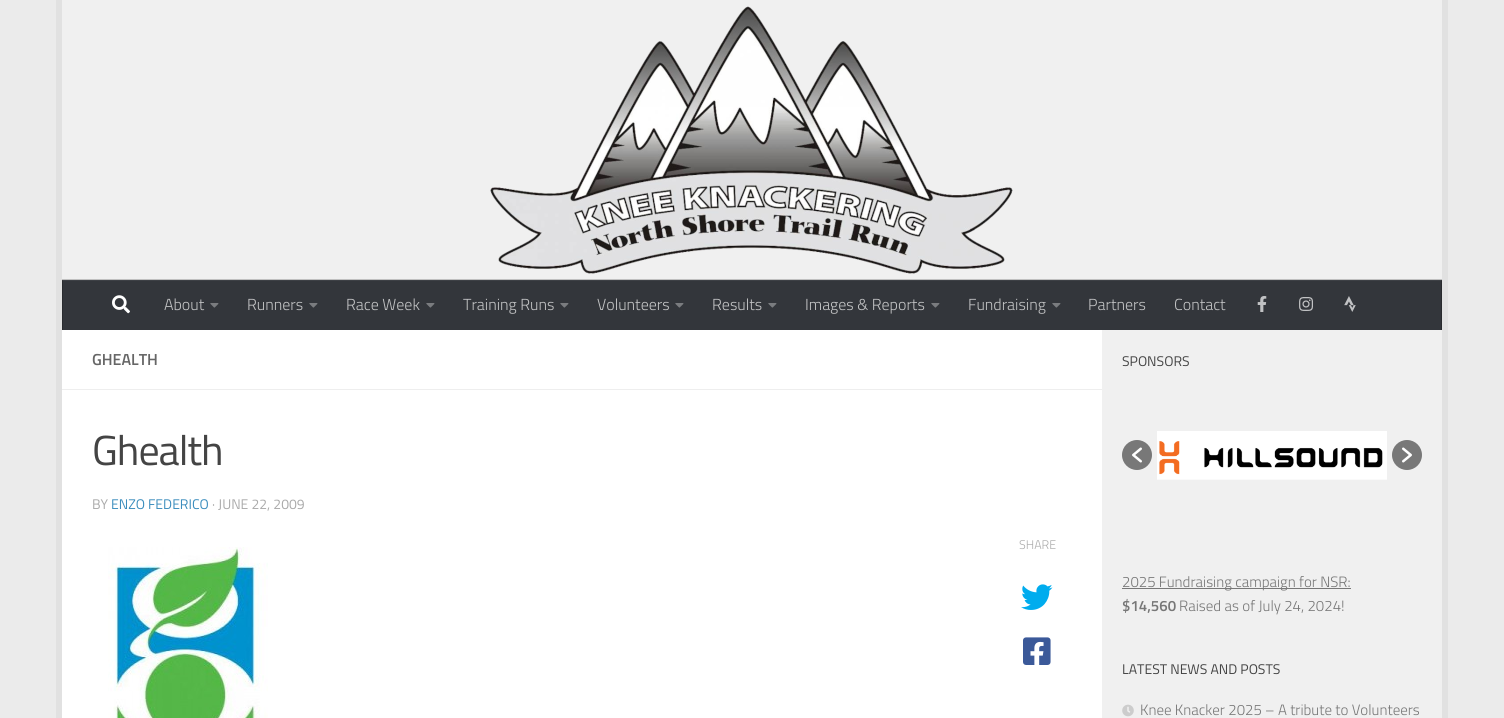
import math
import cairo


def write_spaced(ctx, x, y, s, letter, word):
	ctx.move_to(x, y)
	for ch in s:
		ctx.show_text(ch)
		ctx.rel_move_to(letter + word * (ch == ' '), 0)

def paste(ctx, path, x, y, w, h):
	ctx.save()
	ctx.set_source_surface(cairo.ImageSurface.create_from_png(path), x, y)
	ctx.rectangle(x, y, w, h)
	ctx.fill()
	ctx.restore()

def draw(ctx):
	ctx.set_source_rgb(0.918, 0.918, 0.918)
	ctx.paint()
	ctx.set_source_rgb(0.882, 0.882, 0.882)
	ctx.rectangle(56, 0, 6, 718)
	ctx.rectangle(1442, 0, 6, 718)
	ctx.fill()
	ctx.set_source_rgb(0.941, 0.941, 0.941)
	ctx.rectangle(62, 0, 1380, 279)
	ctx.fill()
	paste(ctx, 'media/1.png', 490, 6, 523, 268)
	ctx.set_source_rgb(0.753, 0.753, 0.753)
	ctx.rectangle(62, 279, 1380, 1)
	ctx.fill()
	ctx.set_source_rgb(0.2, 0.212, 0.231)
	ctx.rectangle(63, 281, 1378, 49)
	ctx.fill()
	ctx.set_source_rgb(0.239, 0.251, 0.271)
	ctx.rectangle(62, 280, 1380, 1)
	ctx.fill()
	ctx.set_source_rgb(0.161, 0.169, 0.184)
	ctx.rectangle(1441, 280, 1, 50)
	ctx.fill()
	ctx.set_source_rgb(0.204, 0.212, 0.224)
	ctx.rectangle(1441, 280, 1, 1)
	ctx.fill()
	ctx.set_source_rgb(0.161, 0.169, 0.184)
	ctx.rectangle(62, 280, 1, 50)
	ctx.fill()
	ctx.set_source_rgb(0.204, 0.212, 0.224)
	ctx.rectangle(62, 280, 1, 1)
	ctx.fill()
	paste(ctx, 'media/2.png', 112, 295, 18, 19)
	ctx.select_font_face('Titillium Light')
	ctx.set_font_size(16)
	ctx.set_source_rgb(0.761, 0.765, 0.769)
	ctx.move_to(164, 310)
	ctx.show_text('About')
	paste(ctx, 'media/3.png', 210, 303, 9, 5)
	ctx.move_to(247, 310)
	ctx.show_text('Runners')
	paste(ctx, 'media/3.png', 309, 303, 9, 5)
	ctx.move_to(346, 310)
	ctx.show_text('Race Week')
	paste(ctx, 'media/3.png', 426, 303, 9, 5)
	ctx.move_to(463, 310)
	ctx.show_text('Training Runs')
	paste(ctx, 'media/3.png', 560, 303, 9, 5)
	ctx.move_to(597, 310)
	ctx.show_text('Volunteers')
	paste(ctx, 'media/3.png', 675, 303, 9, 5)
	ctx.move_to(712, 310)
	ctx.show_text('Results')
	paste(ctx, 'media/3.png', 768, 303, 9, 5)
	ctx.move_to(805, 310)
	ctx.show_text('Images & Reports')
	paste(ctx, 'media/3.png', 931, 303, 9, 5)
	ctx.move_to(968, 310)
	ctx.show_text('Fundraising')
	paste(ctx, 'media/3.png', 1052, 303, 9, 5)
	ctx.move_to(1088, 310)
	ctx.show_text('Partners')
	ctx.move_to(1174, 310)
	ctx.show_text('Contact')
	paste(ctx, 'media/4.png', 1257, 296, 10, 16)
	paste(ctx, 'media/5.png', 1299, 297, 14, 14)
	paste(ctx, 'media/6.png', 1344, 296, 12, 16)
	ctx.set_source_rgb(1, 1, 1)
	ctx.rectangle(62, 330, 1040, 388)
	ctx.fill()
	ctx.set_source_rgb(0.941, 0.941, 0.941)
	ctx.rectangle(1102, 330, 340, 388)
	ctx.fill()
	ctx.set_source_rgb(0.933, 0.933, 0.933)
	ctx.rectangle(62, 389, 1040, 1)
	ctx.fill()
	ctx.select_font_face('Titillium SemiBold')
	ctx.set_source_rgb(0.4, 0.4, 0.4)
	ctx.move_to(92, 365)
	ctx.show_text('GHEALTH')
	ctx.select_font_face('Titillium')
	ctx.set_font_size(42)
	ctx.set_source_rgb(0.267, 0.267, 0.267)
	write_spaced(ctx, 92, 465, 'Ghealth', -1, 0)
	ctx.set_font_size(14)
	ctx.set_source_rgb(0.667, 0.667, 0.667)
	ctx.move_to(92, 509)
	ctx.show_text('BY')
	ctx.set_source_rgb(0.231, 0.553, 0.741)
	ctx.move_to(111, 509)
	ctx.show_text('ENZO FEDERICO')
	ctx.set_source_rgb(0.667, 0.667, 0.667)
	ctx.move_to(212, 509)
	ctx.show_text('· JUNE 22, 2009')
	ctx.select_font_face('Titillium Light')
	ctx.set_font_size(12.5)
	ctx.move_to(1019, 549)
	ctx.show_text('SHARE')
	paste(ctx, 'media/7.png', 1021, 584, 32, 26)
	paste(ctx, 'media/8.png', 1023, 637, 28, 28)
	paste(ctx, 'media/9.png', 108, 547, 160, 171)
	ctx.select_font_face('Titillium')
	ctx.set_font_size(14)
	ctx.set_source_rgb(0.267, 0.267, 0.267)
	ctx.move_to(1122, 366)
	ctx.show_text('SPONSORS')
	ctx.set_source_rgb(0.471, 0.471, 0.471)
	ctx.new_path()
	ctx.arc(1137, 455, 15, 0, 2 * math.pi)
	ctx.fill()
	paste(ctx, 'media/10.png', 1132, 447, 10, 16)
	paste(ctx, 'media/11.png', 1157, 431, 230, 49)
	ctx.arc(1407, 455, 15, 0, 2 * math.pi)
	ctx.fill()
	paste(ctx, 'media/12.png', 1402, 447, 10, 16)
	ctx.set_source_rgb(0.467, 0.467, 0.467)
	ctx.rectangle(1122, 588, 229, 1)
	ctx.fill()
	ctx.select_font_face('Titillium Light')
	ctx.set_font_size(15)
	ctx.move_to(1122, 587)
	ctx.show_text('2025 Fundraising campaign for NSR:')
	ctx.select_font_face('Titillium SemiBold')
	ctx.move_to(1122, 611)
	ctx.show_text('$14,560')
	ctx.select_font_face('Titillium Light')
	ctx.move_to(1179, 611)
	ctx.show_text('Raised as of July 24, 2024!')
	ctx.select_font_face('Titillium')
	ctx.set_font_size(14)
	ctx.set_source_rgb(0.267, 0.267, 0.267)
	ctx.move_to(1122, 674)
	ctx.show_text('LATEST NEWS AND POSTS')
	paste(ctx, 'media/13.png', 1122, 704, 12, 13)
	ctx.select_font_face('Titillium Light')
	ctx.set_font_size(15)
	ctx.set_source_rgb(0.467, 0.467, 0.467)
	ctx.move_to(1140, 715)
	ctx.show_text('Knee Knacker 2025 – A tribute to Volunteers')


surface = cairo.ImageSurface(cairo.FORMAT_RGB24, 1504, 718)
ctx = cairo.Context(surface)
options = cairo.FontOptions()
options.set_hint_metrics(cairo.HINT_METRICS_OFF)
options.set_hint_style(cairo.HINT_STYLE_NONE)
ctx.set_font_options(options)
ctx.set_miter_limit(4)
draw(ctx)
surface.write_to_png('image.png')
